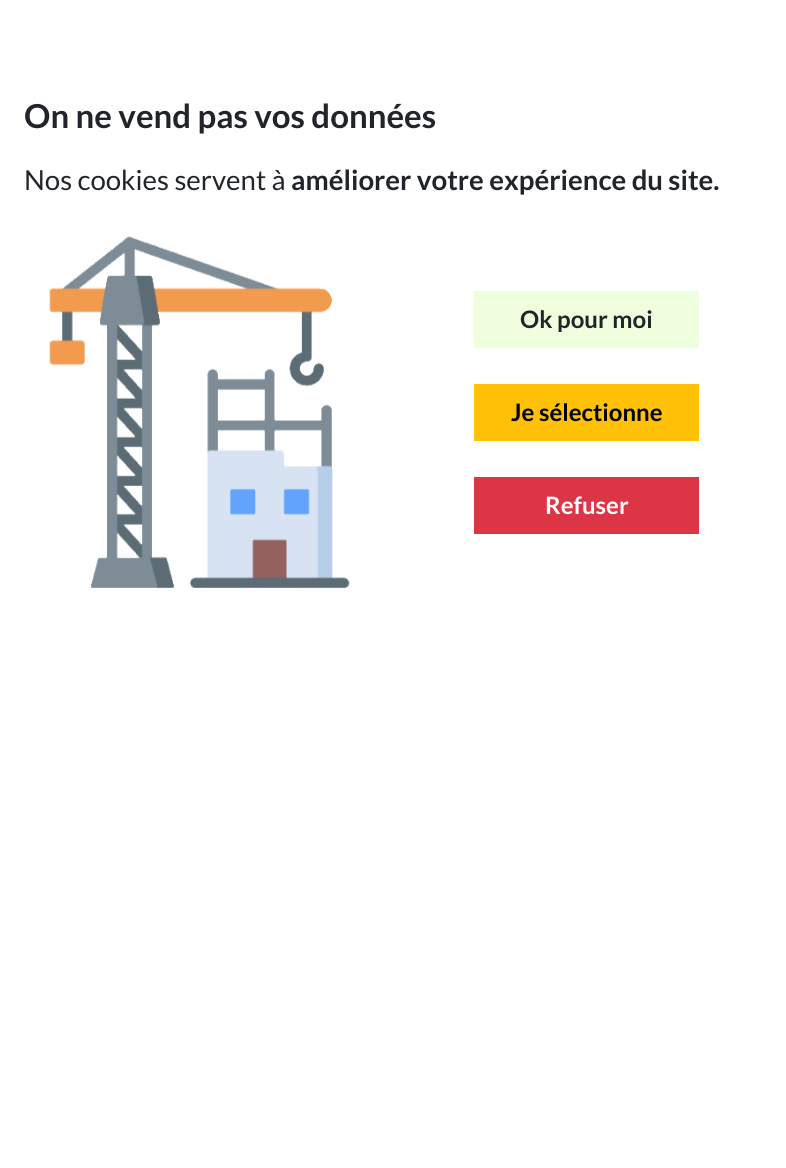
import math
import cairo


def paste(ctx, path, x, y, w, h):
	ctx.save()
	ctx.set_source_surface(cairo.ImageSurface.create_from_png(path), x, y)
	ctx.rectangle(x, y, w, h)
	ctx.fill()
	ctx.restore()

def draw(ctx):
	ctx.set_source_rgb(1, 1, 1)
	ctx.paint()
	ctx.select_font_face('Lato', cairo.FONT_SLANT_NORMAL, cairo.FONT_WEIGHT_BOLD)
	ctx.set_font_size(33)
	ctx.set_source_rgb(0.129, 0.145, 0.161)
	ctx.move_to(24, 128)
	ctx.show_text('On ne vend pas vos données')
	ctx.select_font_face('Lato')
	ctx.set_font_size(27.6)
	ctx.move_to(24, 190)
	ctx.show_text('Nos cookies servent à')
	ctx.select_font_face('Lato', cairo.FONT_SLANT_NORMAL, cairo.FONT_WEIGHT_BOLD)
	ctx.move_to(291, 190)
	ctx.show_text('améliorer votre expérience du site.')
	paste(ctx, 'media/1.png', 49, 236, 301, 352)
	ctx.set_source_rgb(0.937, 1, 0.871)
	ctx.rectangle(474, 291, 225, 57)
	ctx.fill()
	ctx.set_font_size(24)
	ctx.set_source_rgb(0.129, 0.145, 0.161)
	ctx.move_to(520, 328)
	ctx.show_text('Ok pour moi')
	ctx.set_source_rgb(1, 0.757, 0.027)
	ctx.rectangle(474, 384, 225, 57)
	ctx.fill()
	ctx.set_source_rgb(0, 0, 0)
	ctx.move_to(511, 421)
	ctx.show_text('Je sélectionne')
	ctx.set_source_rgb(0.863, 0.208, 0.271)
	ctx.rectangle(474, 477, 225, 57)
	ctx.fill()
	ctx.set_source_rgb(1, 1, 1)
	ctx.move_to(545, 514)
	ctx.show_text('Refuser')


surface = cairo.ImageSurface(cairo.FORMAT_RGB24, 786, 1168)
ctx = cairo.Context(surface)
options = cairo.FontOptions()
options.set_hint_metrics(cairo.HINT_METRICS_OFF)
options.set_hint_style(cairo.HINT_STYLE_NONE)
ctx.set_font_options(options)
ctx.set_miter_limit(4)
draw(ctx)
surface.write_to_png('image.png')
